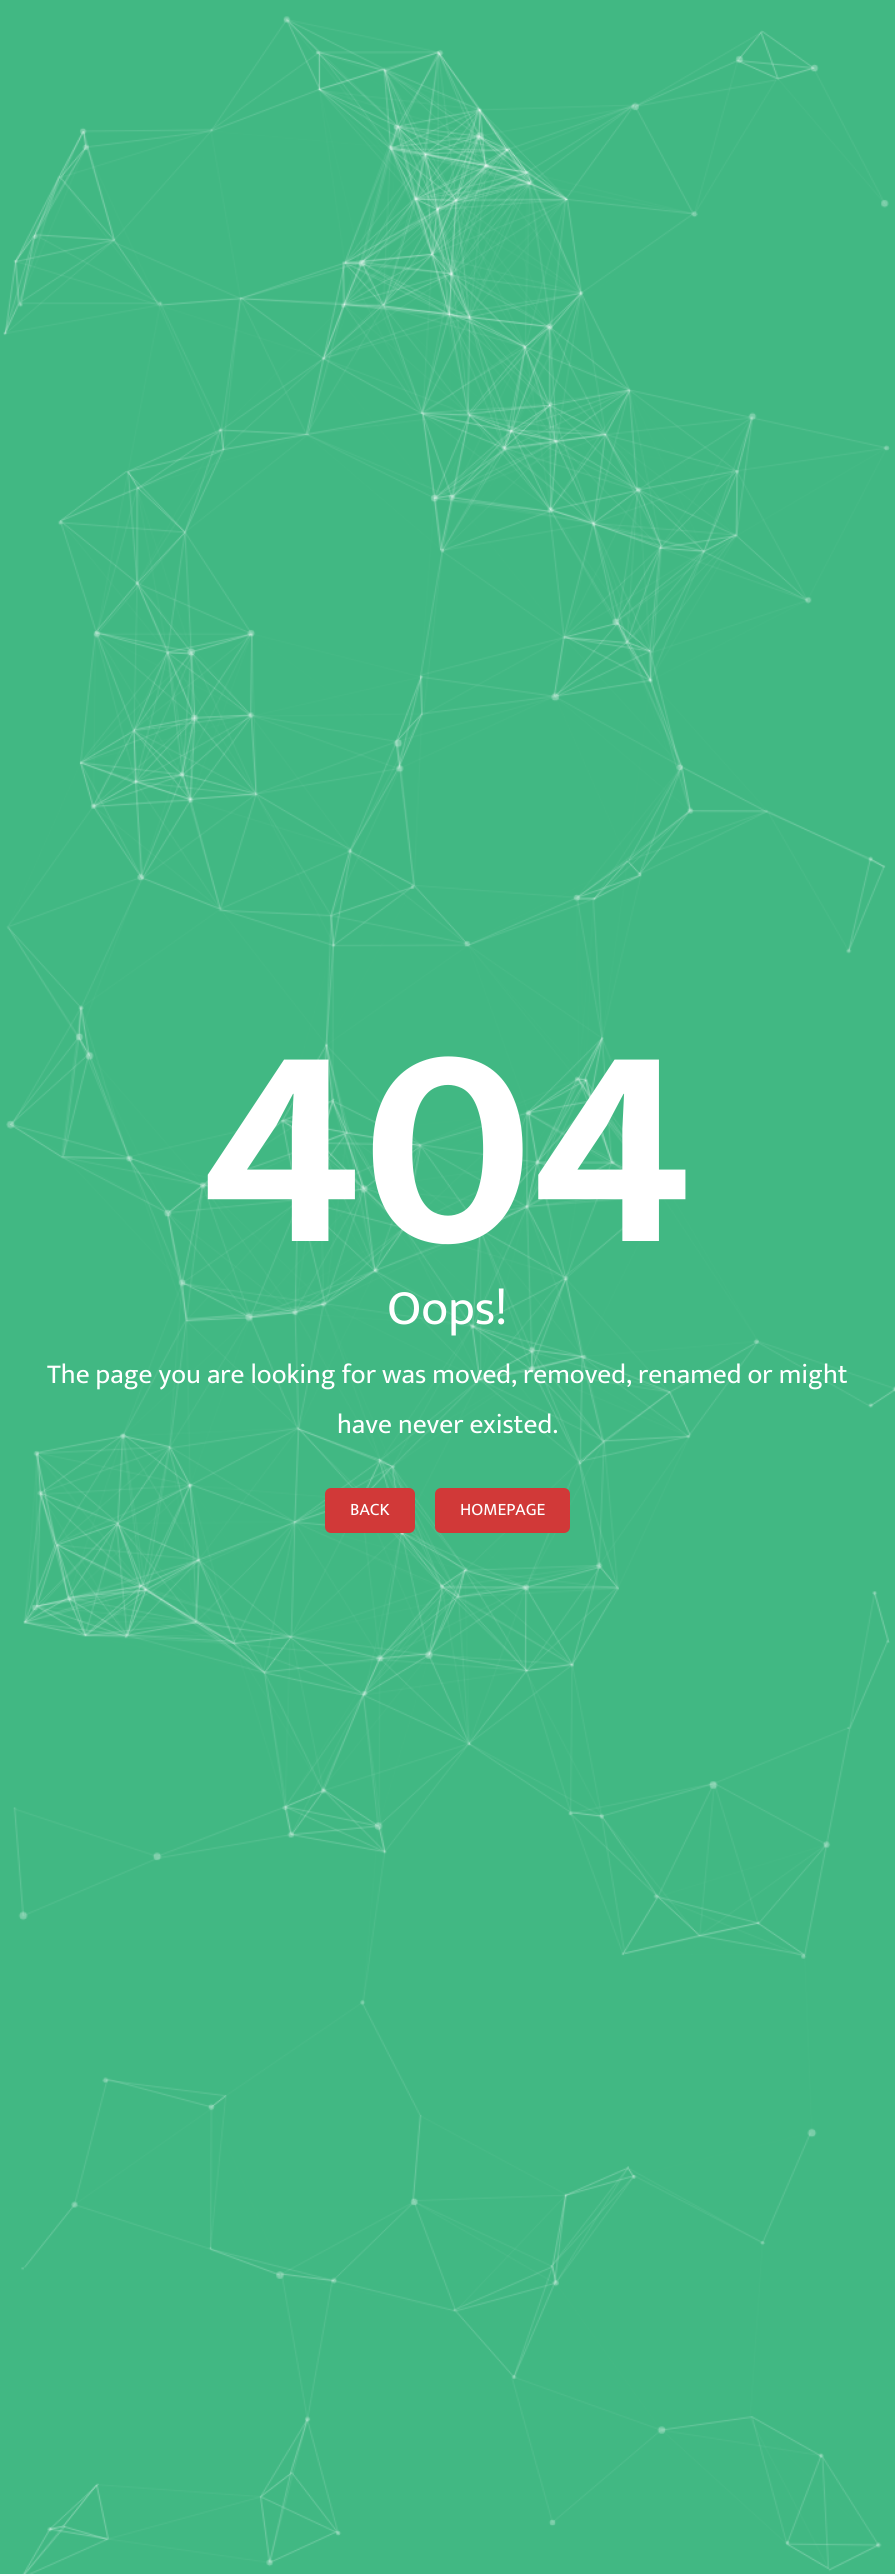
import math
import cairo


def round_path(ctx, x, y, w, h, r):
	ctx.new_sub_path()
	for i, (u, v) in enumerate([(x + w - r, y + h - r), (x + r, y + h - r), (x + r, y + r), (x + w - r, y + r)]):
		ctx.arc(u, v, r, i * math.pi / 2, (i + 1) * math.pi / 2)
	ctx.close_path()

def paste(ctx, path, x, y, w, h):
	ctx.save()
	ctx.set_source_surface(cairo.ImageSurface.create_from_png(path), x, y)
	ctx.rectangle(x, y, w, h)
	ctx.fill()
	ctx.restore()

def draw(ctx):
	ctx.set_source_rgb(0.255, 0.722, 0.514)
	ctx.paint()
	paste(ctx, 'media/1.png', 3, 16, 892, 2558)
	ctx.select_font_face('Mukta', cairo.FONT_SLANT_NORMAL, cairo.FONT_WEIGHT_BOLD)
	ctx.set_font_size(288)
	ctx.set_source_rgb(1, 1, 1)
	ctx.move_to(202, 1241)
	ctx.show_text('404')
	ctx.select_font_face('Mukta')
	ctx.set_font_size(50)
	ctx.move_to(387, 1324)
	ctx.show_text('Oops!')
	ctx.set_font_size(27.5)
	ctx.move_to(47, 1383)
	ctx.show_text('The page you are looking for was moved, removed, renamed or might')
	ctx.move_to(337, 1433)
	ctx.show_text('have never existed.')
	ctx.set_source_rgb(0.82, 0.224, 0.22)
	round_path(ctx, 325, 1488, 90, 45, 6)
	ctx.fill()
	ctx.set_font_size(17.5)
	ctx.set_source_rgb(1, 1, 1)
	ctx.move_to(350, 1515)
	ctx.show_text('BACK')
	ctx.set_source_rgb(0.82, 0.224, 0.22)
	round_path(ctx, 435, 1488, 135, 45, 6)
	ctx.fill()
	ctx.set_source_rgb(1, 1, 1)
	ctx.move_to(460, 1515)
	ctx.show_text('HOMEPAGE')


surface = cairo.ImageSurface(cairo.FORMAT_RGB24, 895, 2574)
ctx = cairo.Context(surface)
options = cairo.FontOptions()
options.set_hint_metrics(cairo.HINT_METRICS_OFF)
options.set_hint_style(cairo.HINT_STYLE_NONE)
ctx.set_font_options(options)
ctx.set_miter_limit(4)
draw(ctx)
surface.write_to_png('image.png')
